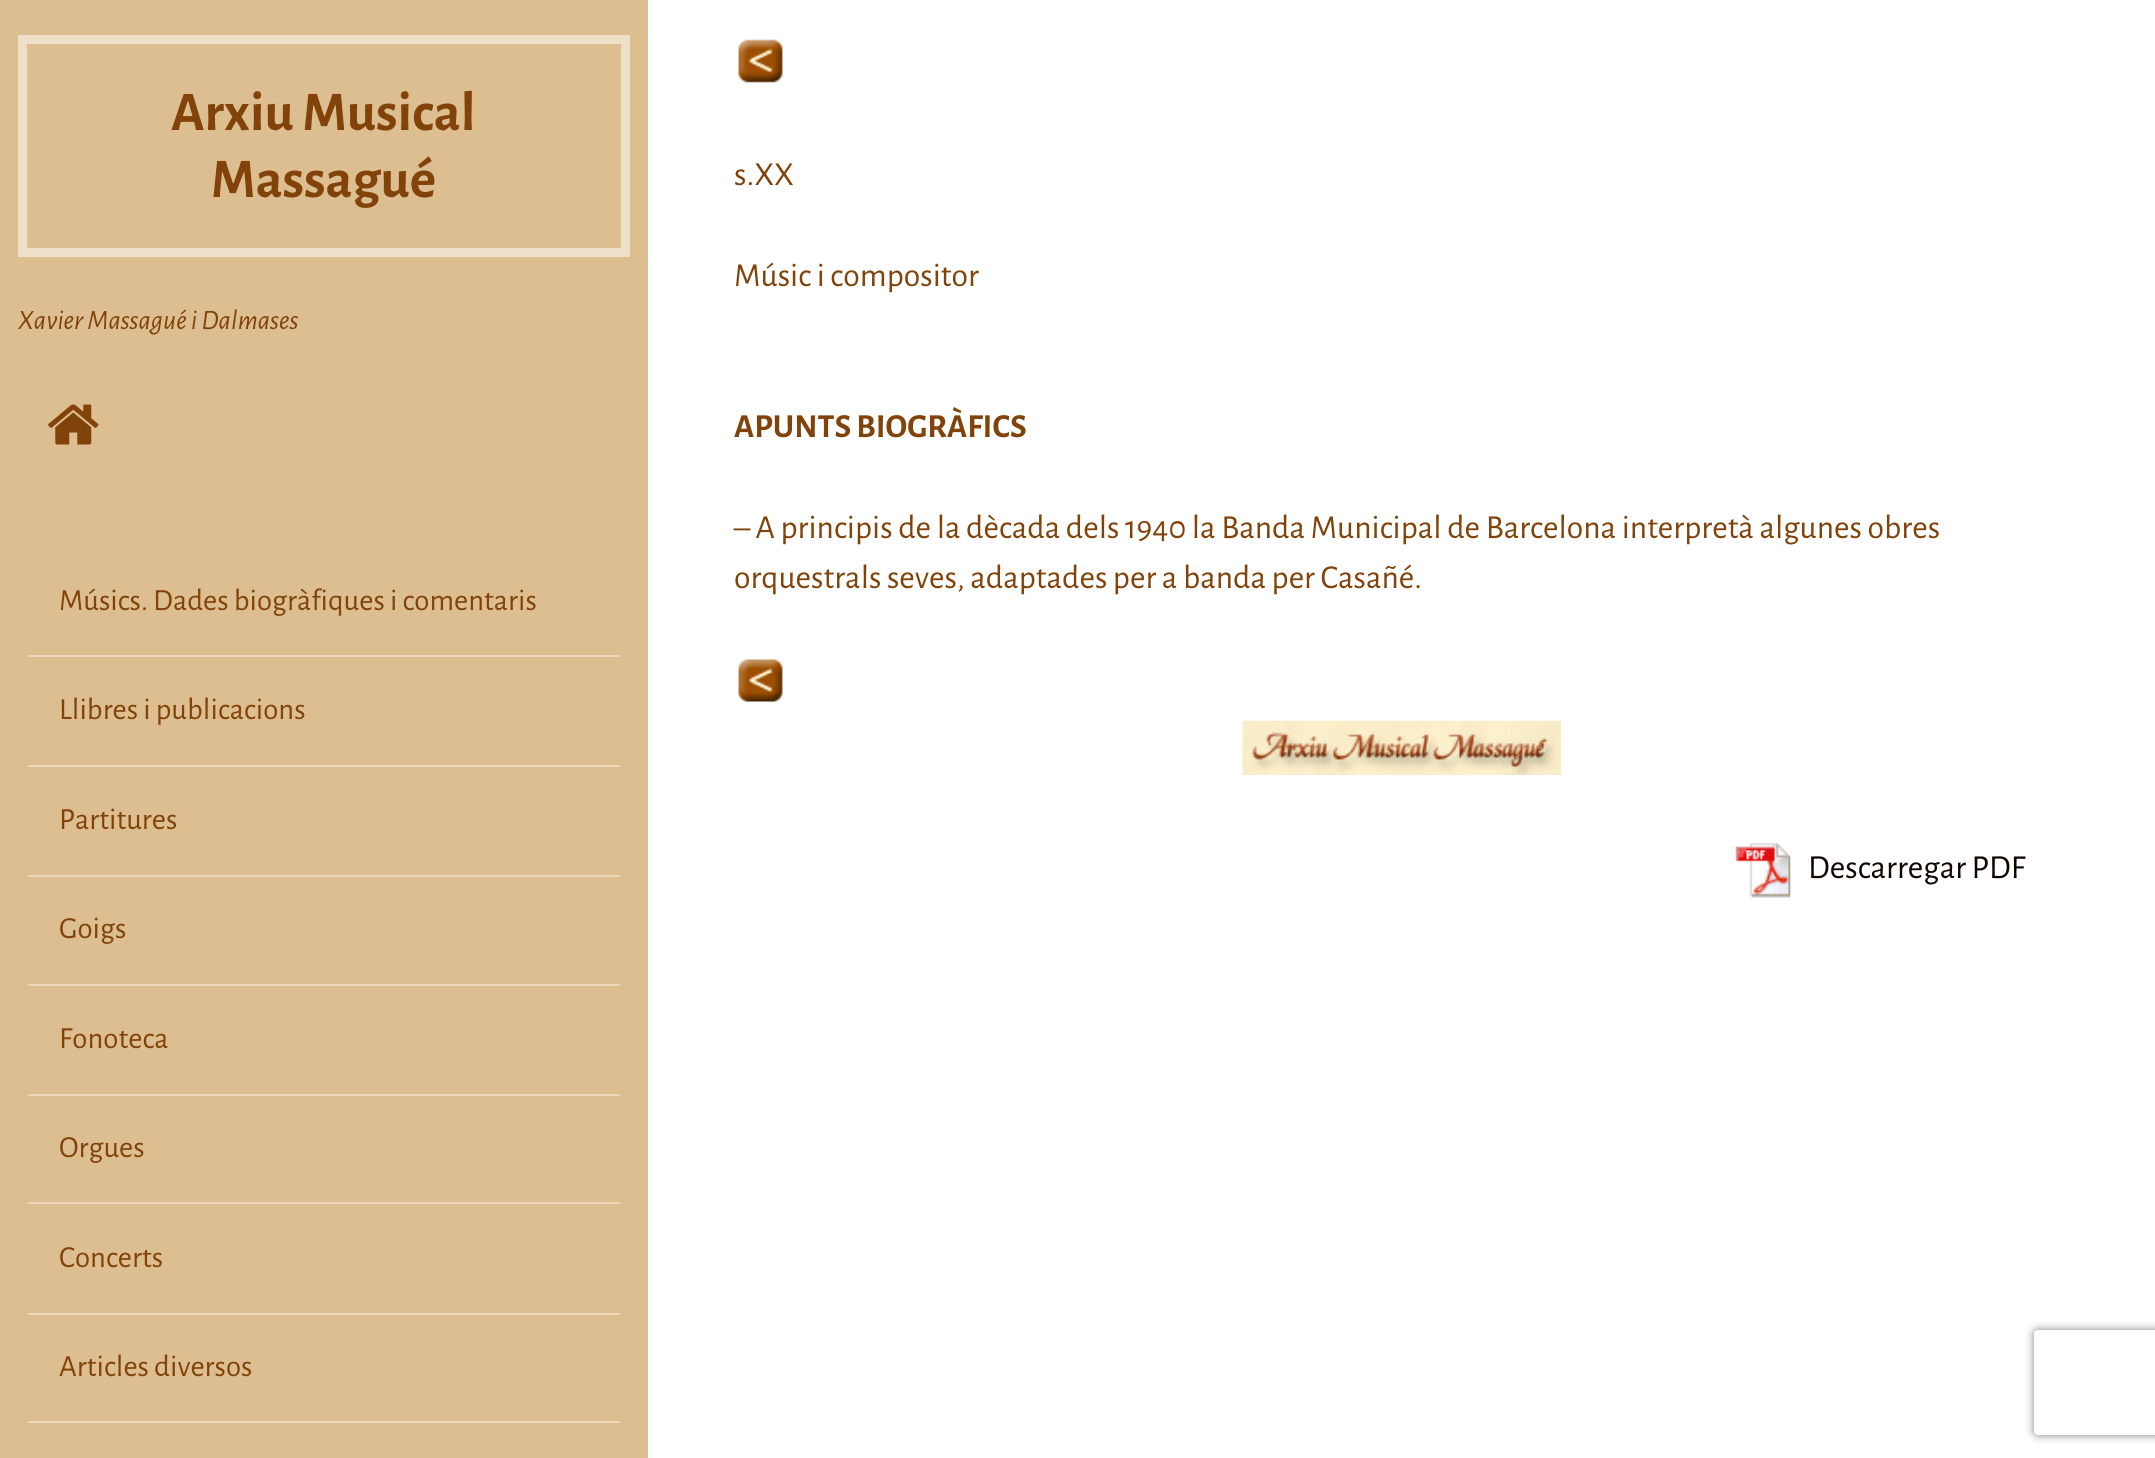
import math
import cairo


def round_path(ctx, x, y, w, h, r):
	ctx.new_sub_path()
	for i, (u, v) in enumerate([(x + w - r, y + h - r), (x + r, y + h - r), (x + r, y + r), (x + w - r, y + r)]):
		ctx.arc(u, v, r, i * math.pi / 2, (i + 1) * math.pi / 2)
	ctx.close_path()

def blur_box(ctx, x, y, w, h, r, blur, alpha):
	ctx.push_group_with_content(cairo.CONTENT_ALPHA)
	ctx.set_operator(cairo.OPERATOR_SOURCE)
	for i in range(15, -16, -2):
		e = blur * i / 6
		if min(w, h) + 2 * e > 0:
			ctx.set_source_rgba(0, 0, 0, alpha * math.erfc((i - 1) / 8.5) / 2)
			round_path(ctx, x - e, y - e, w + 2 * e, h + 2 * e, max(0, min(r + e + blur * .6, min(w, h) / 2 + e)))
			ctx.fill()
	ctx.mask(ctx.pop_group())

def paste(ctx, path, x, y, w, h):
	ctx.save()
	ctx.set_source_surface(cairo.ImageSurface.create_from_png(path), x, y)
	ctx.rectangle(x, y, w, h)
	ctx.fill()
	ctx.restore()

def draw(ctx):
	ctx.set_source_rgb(1, 1, 1)
	ctx.paint()
	ctx.set_source_rgb(0.867, 0.745, 0.565)
	ctx.rectangle(0, 0, 648, 1458)
	ctx.fill()
	ctx.rectangle(22.5, 39.5, 603, 213)
	ctx.set_source_rgb(0.933, 0.875, 0.784)
	ctx.set_line_width(9)
	ctx.stroke()
	ctx.select_font_face('Alegreya Sans', cairo.FONT_SLANT_NORMAL, cairo.FONT_WEIGHT_BOLD)
	ctx.set_font_size(56)
	ctx.set_source_rgb(0.506, 0.263, 0.039)
	ctx.move_to(171, 130)
	ctx.show_text('Arxiu Musical')
	ctx.move_to(211, 197)
	ctx.show_text('Massagué')
	ctx.select_font_face('Alegreya Sans', cairo.FONT_SLANT_ITALIC)
	ctx.set_font_size(28)
	ctx.move_to(18, 329)
	ctx.show_text('Xavier Massagué i Dalmases')
	paste(ctx, 'media/1.png', 48, 404, 51, 41)
	ctx.set_source_rgb(0.922, 0.847, 0.737)
	ctx.rectangle(28, 655, 592, 2)
	ctx.fill()
	ctx.select_font_face('Alegreya Sans')
	ctx.set_font_size(30.75)
	ctx.set_source_rgb(0.506, 0.263, 0.039)
	ctx.move_to(59, 610)
	ctx.show_text('Músics. Dades biogràfiques i comentaris')
	ctx.set_source_rgb(0.922, 0.847, 0.737)
	ctx.rectangle(28, 765, 592, 2)
	ctx.fill()
	ctx.set_source_rgb(0.506, 0.263, 0.039)
	ctx.move_to(59, 719)
	ctx.show_text('Llibres i publicacions')
	ctx.set_source_rgb(0.922, 0.847, 0.737)
	ctx.rectangle(28, 875, 592, 2)
	ctx.fill()
	ctx.set_source_rgb(0.506, 0.263, 0.039)
	ctx.move_to(59, 829)
	ctx.show_text('Partitures')
	ctx.set_source_rgb(0.922, 0.847, 0.737)
	ctx.rectangle(28, 984, 592, 2)
	ctx.fill()
	ctx.set_source_rgb(0.506, 0.263, 0.039)
	ctx.move_to(59, 938)
	ctx.show_text('Goigs')
	ctx.set_source_rgb(0.922, 0.847, 0.737)
	ctx.rectangle(28, 1094, 592, 2)
	ctx.fill()
	ctx.set_source_rgb(0.506, 0.263, 0.039)
	ctx.move_to(59, 1048)
	ctx.show_text('Fonoteca')
	ctx.set_source_rgb(0.922, 0.847, 0.737)
	ctx.rectangle(28, 1202, 592, 2)
	ctx.fill()
	ctx.set_source_rgb(0.506, 0.263, 0.039)
	ctx.move_to(59, 1157)
	ctx.show_text('Orgues')
	ctx.set_source_rgb(0.922, 0.847, 0.737)
	ctx.rectangle(28, 1313, 592, 2)
	ctx.fill()
	ctx.set_source_rgb(0.506, 0.263, 0.039)
	ctx.move_to(59, 1267)
	ctx.show_text('Concerts')
	ctx.set_source_rgb(0.922, 0.847, 0.737)
	ctx.rectangle(28, 1421, 592, 2)
	ctx.fill()
	ctx.set_source_rgb(0.506, 0.263, 0.039)
	ctx.move_to(59, 1376)
	ctx.show_text('Articles diversos')
	paste(ctx, 'media/2.png', 738, 39, 45, 44)
	ctx.set_font_size(33.6)
	ctx.move_to(734, 185)
	ctx.show_text('s.XX')
	ctx.move_to(734, 286)
	ctx.show_text('Músic i compositor')
	ctx.select_font_face('Alegreya Sans', cairo.FONT_SLANT_NORMAL, cairo.FONT_WEIGHT_BOLD)
	ctx.move_to(734, 437)
	ctx.show_text('APUNTS BIOGRÀFICS')
	ctx.select_font_face('Alegreya Sans')
	ctx.move_to(734, 538)
	ctx.show_text('– A principis de la dècada dels 1940 la Banda Municipal de Barcelona interpretà algunes obres')
	ctx.move_to(734, 588)
	ctx.show_text('orquestrals seves, adaptades per a banda per Casañé.')
	paste(ctx, 'media/3.png', 738, 659, 45, 43)
	paste(ctx, 'media/4.png', 1242, 720, 319, 55)
	paste(ctx, 'media/5.png', 1735, 843, 56, 55)
	ctx.set_source_rgb(0.067, 0.016, 0)
	ctx.move_to(1808, 878)
	ctx.show_text('Descarregar PDF')
	ctx.save()
	ctx.set_fill_rule(cairo.FILL_RULE_EVEN_ODD)
	ctx.new_path()
	ctx.move_to(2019, 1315)
	ctx.line_to(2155, 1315)
	ctx.line_to(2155, 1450)
	ctx.line_to(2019, 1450)
	ctx.close_path()
	ctx.move_to(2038, 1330)
	ctx.line_to(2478, 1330)
	ctx.curve_to(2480, 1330, 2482, 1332, 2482, 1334)
	ctx.line_to(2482, 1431)
	ctx.curve_to(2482, 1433, 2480, 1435, 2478, 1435)
	ctx.line_to(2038, 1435)
	ctx.curve_to(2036, 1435, 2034, 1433, 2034, 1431)
	ctx.line_to(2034, 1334)
	ctx.curve_to(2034, 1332, 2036, 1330, 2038, 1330)
	ctx.close_path()
	ctx.clip()
	ctx.set_source_rgb(0.502, 0.502, 0.502)
	blur_box(ctx, 2034, 1330, 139, 105, 4, 4.5, 1)
	ctx.restore()


surface = cairo.ImageSurface(cairo.FORMAT_RGB24, 2155, 1458)
ctx = cairo.Context(surface)
options = cairo.FontOptions()
options.set_hint_metrics(cairo.HINT_METRICS_OFF)
options.set_hint_style(cairo.HINT_STYLE_NONE)
ctx.set_font_options(options)
ctx.set_miter_limit(4)
draw(ctx)
surface.write_to_png('image.png')
